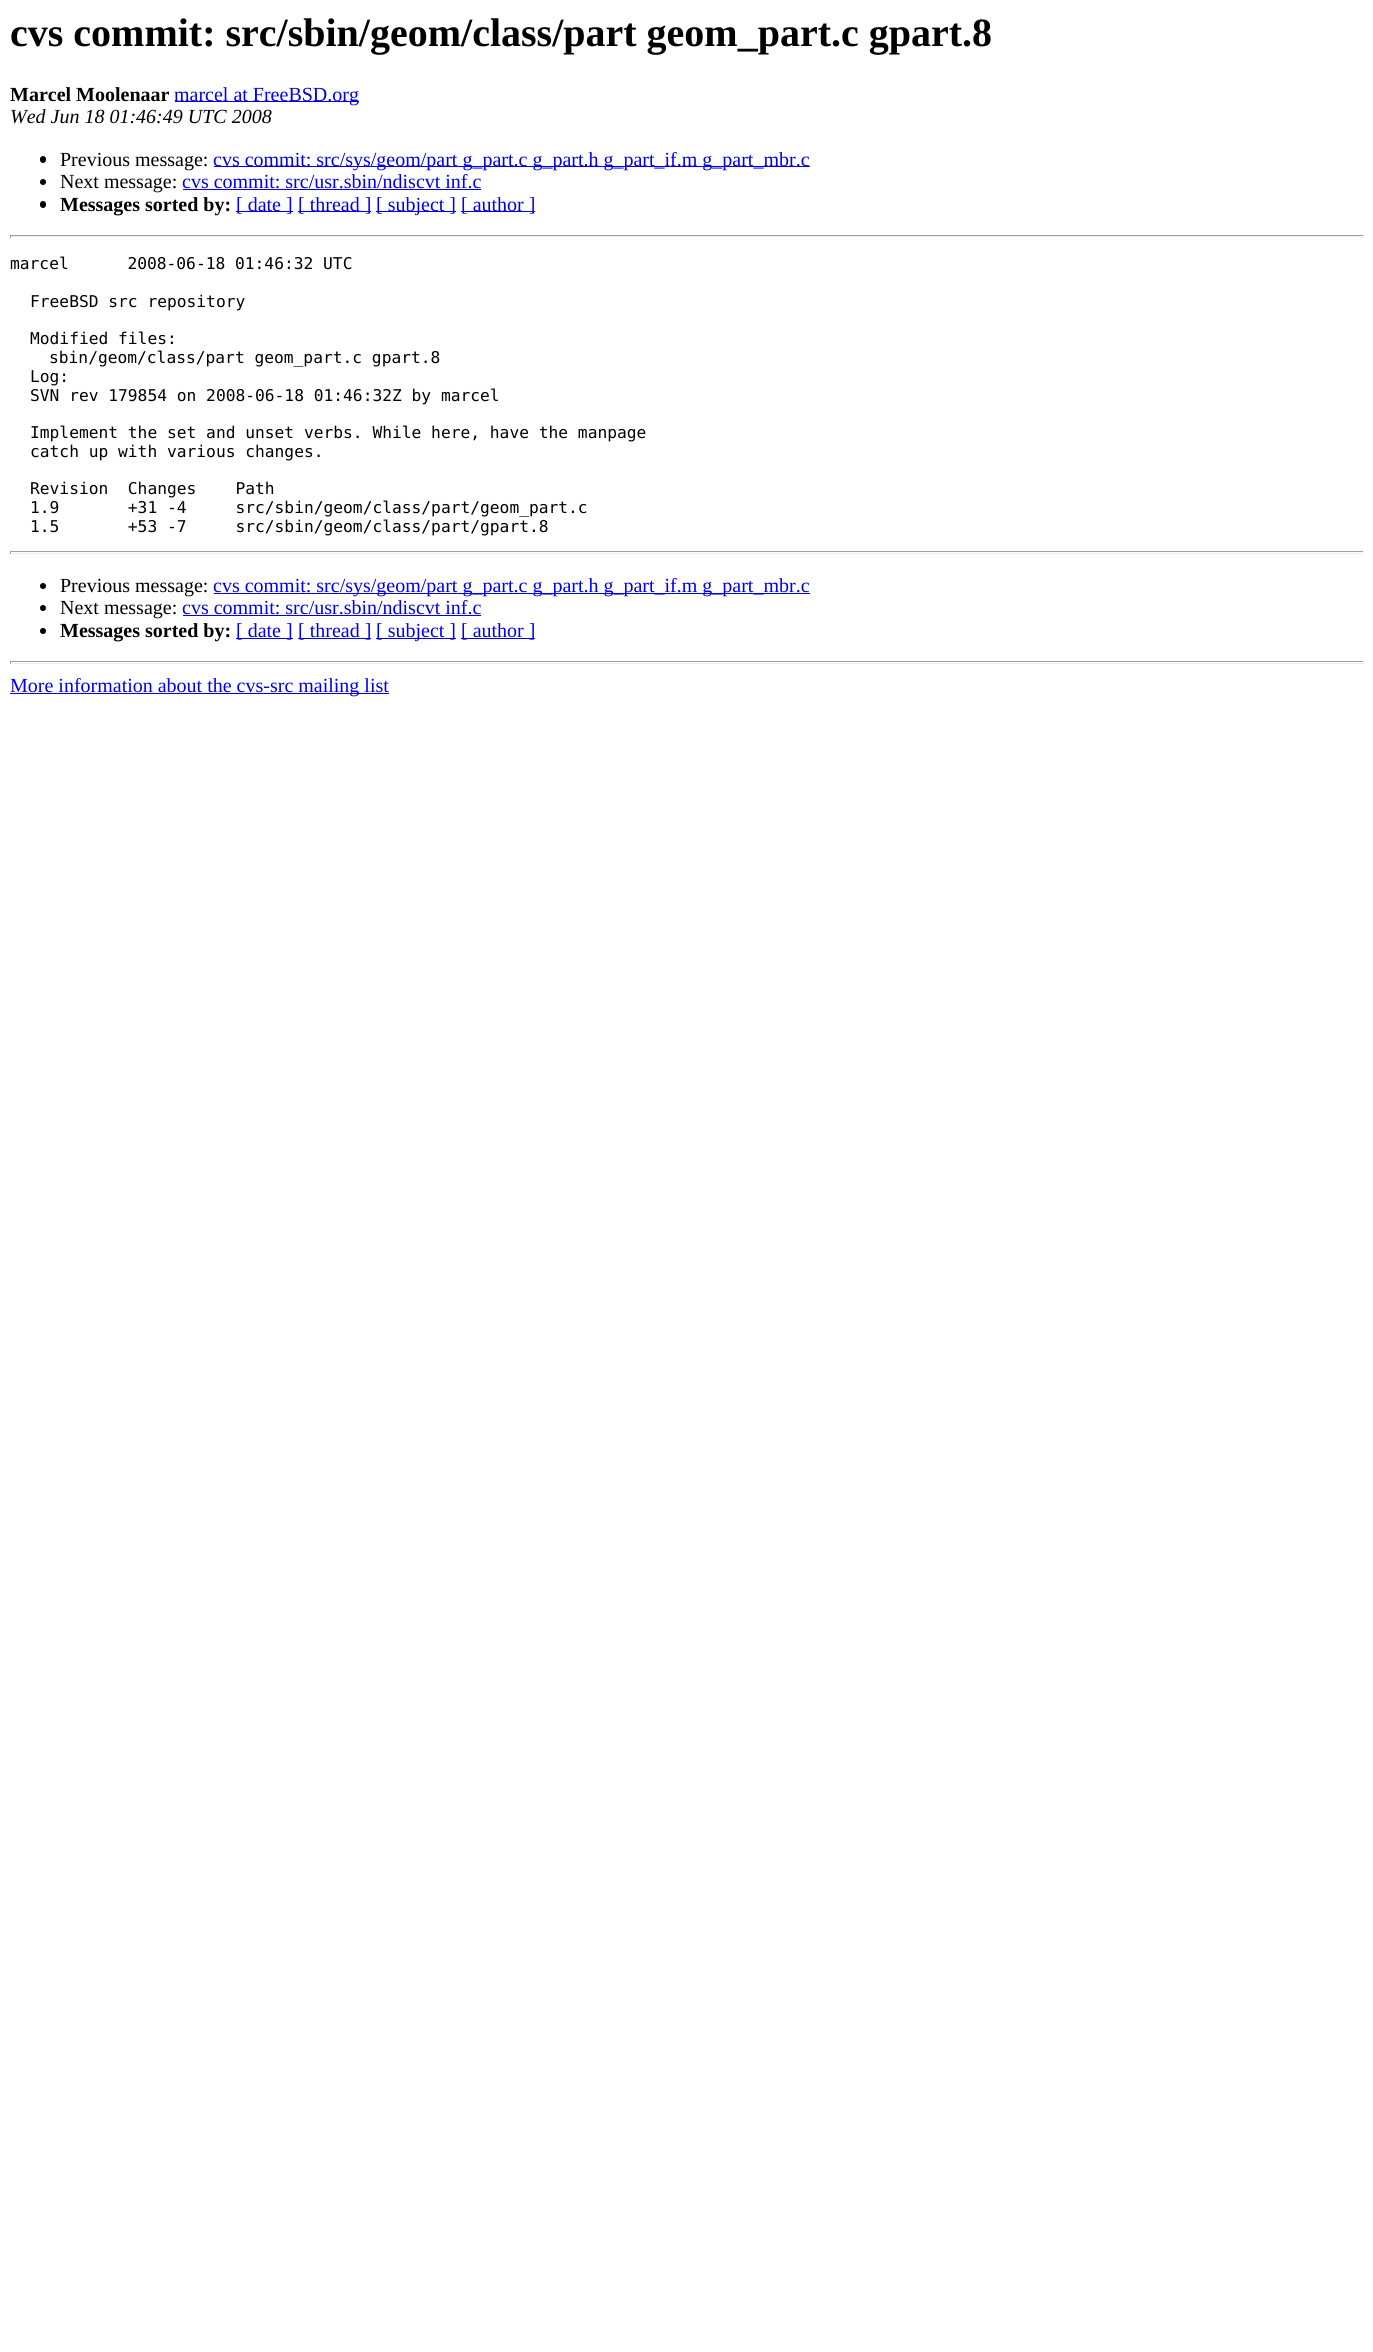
import math
import cairo


def round_path(ctx, x, y, w, h, r):
	ctx.new_sub_path()
	for i, (u, v) in enumerate([(x + w - r, y + h - r), (x + r, y + h - r), (x + r, y + r), (x + w - r, y + r)]):
		ctx.arc(u, v, r, i * math.pi / 2, (i + 1) * math.pi / 2)
	ctx.close_path()

def draw(ctx):
	ctx.set_source_rgb(1, 1, 1)
	ctx.paint()
	ctx.select_font_face('Liberation Serif', cairo.FONT_SLANT_NORMAL, cairo.FONT_WEIGHT_BOLD)
	ctx.set_font_size(40)
	ctx.set_source_rgb(0, 0, 0)
	ctx.move_to(10, 46)
	ctx.show_text('cvs commit: src/sbin/geom/class/part geom_part.c gpart.8')
	ctx.set_font_size(20)
	ctx.move_to(10, 101)
	ctx.show_text('Marcel Moolenaar')
	ctx.set_source_rgb(0, 0, 0.933)
	ctx.rectangle(175, 101, 184, 1)
	ctx.fill()
	ctx.select_font_face('Liberation Serif')
	ctx.move_to(174, 101)
	ctx.show_text('marcel at FreeBSD.org')
	ctx.select_font_face('Liberation Serif', cairo.FONT_SLANT_ITALIC)
	ctx.set_source_rgb(0, 0, 0)
	ctx.move_to(10, 123)
	ctx.show_text('Wed Jun 18 01:46:49 UTC 2008')
	round_path(ctx, 40, 156, 6, 7, 3)
	ctx.fill()
	ctx.select_font_face('Liberation Serif')
	ctx.move_to(60, 166)
	ctx.show_text('Previous message:')
	ctx.set_source_rgb(0, 0, 0.933)
	ctx.rectangle(214, 166, 596, 1)
	ctx.fill()
	ctx.move_to(213, 166)
	ctx.show_text('cvs commit: src/sys/geom/part g_part.c g_part.h g_part_if.m g_part_mbr.c')
	ctx.set_source_rgb(0, 0, 0)
	ctx.new_path()
	ctx.arc(43, 182, 3, 0, 2 * math.pi)
	ctx.fill()
	ctx.move_to(60, 188)
	ctx.show_text('Next message:')
	ctx.set_source_rgb(0, 0, 0.933)
	ctx.move_to(182, 188)
	ctx.show_text('cvs commit: src/usr.sbin/ndiscvt inf.c')
	ctx.rectangle(183, 189, 298, 1)
	ctx.fill()
	ctx.set_source_rgb(0, 0, 0)
	round_path(ctx, 40, 201, 6, 7, 3)
	ctx.fill()
	ctx.select_font_face('Liberation Serif', cairo.FONT_SLANT_NORMAL, cairo.FONT_WEIGHT_BOLD)
	ctx.move_to(60, 211)
	ctx.show_text('Messages sorted by:')
	ctx.set_source_rgb(0, 0, 0.933)
	ctx.rectangle(236, 211, 57, 1)
	ctx.fill()
	ctx.select_font_face('Liberation Serif')
	ctx.move_to(236, 211)
	ctx.show_text('[ date ]')
	ctx.rectangle(298, 211, 73, 1)
	ctx.fill()
	ctx.move_to(298, 211)
	ctx.show_text('[ thread ]')
	ctx.rectangle(376, 211, 80, 1)
	ctx.fill()
	ctx.move_to(376, 211)
	ctx.show_text('[ subject ]')
	ctx.rectangle(461, 211, 74, 1)
	ctx.fill()
	ctx.move_to(461, 211)
	ctx.show_text('[ author ]')
	ctx.set_source_rgb(0.624, 0.624, 0.624)
	ctx.rectangle(10, 235, 1354, 1)
	ctx.fill()
	ctx.set_source_rgb(0.933, 0.933, 0.933)
	ctx.rectangle(1363, 235, 1, 3)
	ctx.rectangle(10, 236, 1354, 1)
	ctx.fill()
	ctx.set_source_rgb(0.624, 0.624, 0.624)
	ctx.rectangle(10, 235, 1, 3)
	ctx.fill()
	ctx.select_font_face('DejaVu Sans Mono')
	ctx.set_font_size(16.25)
	ctx.set_source_rgb(0, 0, 0)
	for x, y, s in [
		(10, 269, 'marcel      2008-06-18 01:46:32 UTC'),
		(30, 307, 'FreeBSD src repository'),
		(30, 344, 'Modified files:'),
		(49, 363, 'sbin/geom/class/part geom_part.c gpart.8'),
		(30, 382, 'Log:'),
		(30, 401, 'SVN rev 179854 on 2008-06-18 01:46:32Z by marcel'),
		(30, 438, 'Implement the set and unset verbs. While here, have the manpage'),
		(30, 457, 'catch up with various changes.'),
		(30, 494, 'Revision  Changes    Path'),
		(30, 513, '1.9       +31 -4     src/sbin/geom/class/part/geom_part.c'),
		(30, 532, '1.5       +53 -7     src/sbin/geom/class/part/gpart.8'),
	]:
		ctx.move_to(x, y)
		ctx.show_text(s)
	ctx.set_source_rgb(0.624, 0.624, 0.624)
	ctx.rectangle(10, 551, 1354, 1)
	ctx.fill()
	ctx.set_source_rgb(0.933, 0.933, 0.933)
	ctx.rectangle(1363, 551, 1, 3)
	ctx.rectangle(10, 553, 1354, 1)
	ctx.fill()
	ctx.set_source_rgb(0.624, 0.624, 0.624)
	ctx.rectangle(10, 551, 1, 3)
	ctx.fill()
	ctx.set_source_rgb(0, 0, 0)
	ctx.arc(43, 586, 3, 0, 2 * math.pi)
	ctx.fill()
	ctx.select_font_face('Liberation Serif')
	ctx.set_font_size(20)
	ctx.move_to(60, 592)
	ctx.show_text('Previous message:')
	ctx.set_source_rgb(0, 0, 0.933)
	ctx.rectangle(214, 593, 596, 1)
	ctx.fill()
	ctx.move_to(213, 592)
	ctx.show_text('cvs commit: src/sys/geom/part g_part.c g_part.h g_part_if.m g_part_mbr.c')
	ctx.set_source_rgb(0, 0, 0)
	ctx.new_path()
	ctx.arc(43, 608, 3, 0, 2 * math.pi)
	ctx.fill()
	ctx.move_to(60, 614)
	ctx.show_text('Next message:')
	ctx.set_source_rgb(0, 0, 0.933)
	ctx.move_to(182, 614)
	ctx.show_text('cvs commit: src/usr.sbin/ndiscvt inf.c')
	ctx.rectangle(183, 615, 298, 1)
	ctx.fill()
	ctx.set_source_rgb(0, 0, 0)
	ctx.arc(43, 631, 3, 0, 2 * math.pi)
	ctx.fill()
	ctx.select_font_face('Liberation Serif', cairo.FONT_SLANT_NORMAL, cairo.FONT_WEIGHT_BOLD)
	ctx.move_to(60, 637)
	ctx.show_text('Messages sorted by:')
	ctx.set_source_rgb(0, 0, 0.933)
	ctx.rectangle(236, 638, 57, 1)
	ctx.fill()
	ctx.select_font_face('Liberation Serif')
	ctx.move_to(236, 637)
	ctx.show_text('[ date ]')
	ctx.rectangle(298, 638, 73, 1)
	ctx.fill()
	ctx.move_to(298, 637)
	ctx.show_text('[ thread ]')
	ctx.rectangle(376, 638, 80, 1)
	ctx.fill()
	ctx.move_to(376, 637)
	ctx.show_text('[ subject ]')
	ctx.rectangle(461, 638, 74, 1)
	ctx.fill()
	ctx.move_to(461, 637)
	ctx.show_text('[ author ]')
	ctx.set_source_rgb(0.624, 0.624, 0.624)
	ctx.rectangle(10, 661, 1354, 1)
	ctx.fill()
	ctx.set_source_rgb(0.933, 0.933, 0.933)
	ctx.rectangle(1363, 661, 1, 3)
	ctx.rectangle(10, 663, 1354, 1)
	ctx.fill()
	ctx.set_source_rgb(0.624, 0.624, 0.624)
	ctx.rectangle(10, 661, 1, 3)
	ctx.fill()
	ctx.set_source_rgb(0, 0, 0.933)
	ctx.rectangle(10, 693, 379, 1)
	ctx.fill()
	ctx.move_to(10, 692)
	ctx.show_text('More information about the cvs-src mailing list')


surface = cairo.ImageSurface(cairo.FORMAT_RGB24, 1373, 2352)
ctx = cairo.Context(surface)
options = cairo.FontOptions()
options.set_hint_metrics(cairo.HINT_METRICS_OFF)
options.set_hint_style(cairo.HINT_STYLE_NONE)
ctx.set_font_options(options)
ctx.set_miter_limit(4)
draw(ctx)
surface.write_to_png('image.png')
